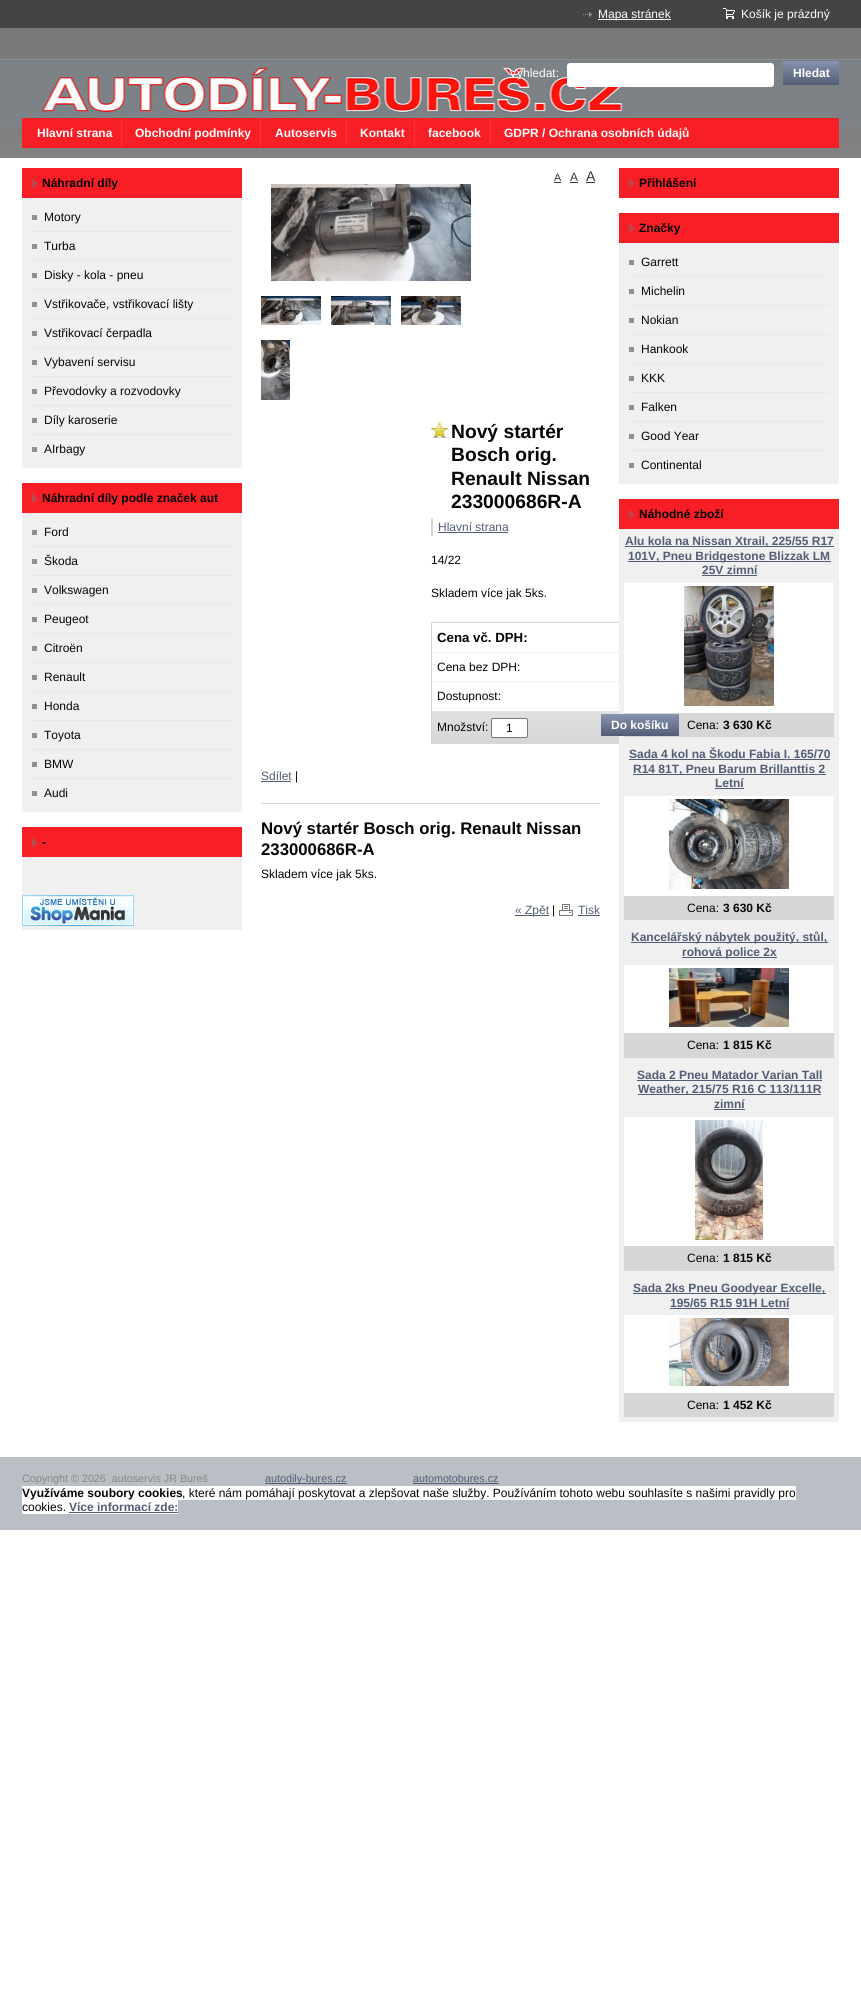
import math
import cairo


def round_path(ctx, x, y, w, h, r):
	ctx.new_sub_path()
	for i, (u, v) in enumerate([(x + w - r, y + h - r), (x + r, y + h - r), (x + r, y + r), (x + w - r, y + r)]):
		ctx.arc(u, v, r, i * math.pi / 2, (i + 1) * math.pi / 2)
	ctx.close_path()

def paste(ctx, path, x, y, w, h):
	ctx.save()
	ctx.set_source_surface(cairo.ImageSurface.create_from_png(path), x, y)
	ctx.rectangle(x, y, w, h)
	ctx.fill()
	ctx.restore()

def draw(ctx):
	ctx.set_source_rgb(1, 1, 1)
	ctx.paint()
	ctx.set_source_rgb(0.267, 0.267, 0.267)
	ctx.rectangle(0, 0, 861, 28)
	ctx.fill()
	paste(ctx, 'media/1.png', 583, 12, 9, 5)
	ctx.set_source_rgb(1, 1, 1)
	ctx.rectangle(598, 19, 73, 1)
	ctx.fill()
	ctx.select_font_face('Liberation Sans')
	ctx.set_font_size(12)
	ctx.move_to(598, 18)
	ctx.show_text('Mapa stránek')
	paste(ctx, 'media/2.png', 723, 8, 12, 11)
	ctx.move_to(741, 18)
	ctx.show_text('Košík je prázdný')
	paste(ctx, 'media/3.png', 0, 28, 861, 130)
	ctx.move_to(509, 77)
	ctx.show_text('Vyhledat:')
	round_path(ctx, 567, 63, 207, 24, 3)
	ctx.fill()
	gradient = cairo.LinearGradient(783, 61, 783, 85)
	gradient.add_color_stop_rgba(0, 0.529, 0.58, 0.69, 1)
	gradient.add_color_stop_rgba(1, 0.322, 0.365, 0.459, 1)
	ctx.set_source(gradient)
	ctx.rectangle(783, 61, 56, 24)
	ctx.fill()
	ctx.select_font_face('Liberation Sans', cairo.FONT_SLANT_NORMAL, cairo.FONT_WEIGHT_BOLD)
	ctx.set_source_rgb(1, 1, 1)
	ctx.move_to(793, 77)
	ctx.show_text('Hledat')
	ctx.set_source_rgb(0.965, 0.118, 0.145)
	ctx.rectangle(22, 118, 817, 30)
	ctx.fill()
	ctx.set_source_rgb(1, 1, 1)
	ctx.move_to(37, 137)
	ctx.show_text('Hlavní strana')
	ctx.set_source_rgb(1, 0.184, 0.212)
	ctx.rectangle(121, 119, 1, 28)
	ctx.fill()
	ctx.set_source_rgb(1, 1, 1)
	ctx.move_to(135, 137)
	ctx.show_text('Obchodní podmínky')
	ctx.set_source_rgb(1, 0.184, 0.212)
	ctx.rectangle(260, 119, 1, 28)
	ctx.fill()
	ctx.set_source_rgb(1, 1, 1)
	ctx.move_to(275, 137)
	ctx.show_text('Autoservis')
	ctx.set_source_rgb(1, 0.184, 0.212)
	ctx.rectangle(346, 119, 1, 28)
	ctx.fill()
	ctx.set_source_rgb(1, 1, 1)
	ctx.move_to(360, 137)
	ctx.show_text('Kontakt')
	ctx.set_source_rgb(1, 0.184, 0.212)
	ctx.rectangle(414, 119, 1, 28)
	ctx.fill()
	ctx.set_source_rgb(1, 1, 1)
	ctx.move_to(428, 137)
	ctx.show_text('facebook')
	ctx.set_source_rgb(1, 0.184, 0.212)
	ctx.rectangle(490, 119, 1, 28)
	ctx.fill()
	ctx.set_source_rgb(1, 1, 1)
	ctx.move_to(504, 137)
	ctx.show_text('GDPR / Ochrana osobních údajů')
	ctx.set_source_rgb(0.965, 0.118, 0.145)
	ctx.rectangle(22, 168, 220, 30)
	ctx.fill()
	paste(ctx, 'media/4.png', 32, 179, 5, 9)
	ctx.set_source_rgb(0, 0, 0)
	ctx.move_to(42, 187)
	ctx.show_text('Náhradní díly')
	ctx.set_source_rgb(0.941, 0.941, 0.941)
	ctx.rectangle(22, 198, 220, 270)
	ctx.fill()
	ctx.set_source_rgb(0.565, 0.565, 0.565)
	ctx.rectangle(32, 215, 5, 5)
	ctx.fill()
	ctx.set_source_rgb(0.906, 0.906, 0.906)
	ctx.rectangle(32, 231, 200, 1)
	ctx.fill()
	ctx.select_font_face('Liberation Sans')
	ctx.set_source_rgb(0.024, 0.016, 0.016)
	ctx.move_to(44, 221)
	ctx.show_text('Motory')
	ctx.set_source_rgb(0.565, 0.565, 0.565)
	ctx.rectangle(32, 244, 5, 5)
	ctx.fill()
	ctx.set_source_rgb(0.906, 0.906, 0.906)
	ctx.rectangle(32, 260, 200, 1)
	ctx.fill()
	ctx.set_source_rgb(0.024, 0.016, 0.016)
	ctx.move_to(44, 250)
	ctx.show_text('Turba')
	ctx.set_source_rgb(0.565, 0.565, 0.565)
	ctx.rectangle(32, 273, 5, 5)
	ctx.fill()
	ctx.set_source_rgb(0.906, 0.906, 0.906)
	ctx.rectangle(32, 289, 200, 1)
	ctx.fill()
	ctx.set_source_rgb(0.024, 0.016, 0.016)
	ctx.move_to(44, 279)
	ctx.show_text('Disky - kola - pneu')
	ctx.set_source_rgb(0.565, 0.565, 0.565)
	ctx.rectangle(32, 302, 5, 5)
	ctx.fill()
	ctx.set_source_rgb(0.906, 0.906, 0.906)
	ctx.rectangle(32, 318, 200, 1)
	ctx.fill()
	ctx.set_source_rgb(0.024, 0.016, 0.016)
	ctx.move_to(44, 308)
	ctx.show_text('Vstřikovače, vstřikovací lišty')
	ctx.set_source_rgb(0.565, 0.565, 0.565)
	ctx.rectangle(32, 331, 5, 5)
	ctx.fill()
	ctx.set_source_rgb(0.906, 0.906, 0.906)
	ctx.rectangle(32, 347, 200, 1)
	ctx.fill()
	ctx.set_source_rgb(0.024, 0.016, 0.016)
	ctx.move_to(44, 337)
	ctx.show_text('Vstřikovací čerpadla')
	ctx.set_source_rgb(0.565, 0.565, 0.565)
	ctx.rectangle(32, 360, 5, 5)
	ctx.fill()
	ctx.set_source_rgb(0.906, 0.906, 0.906)
	ctx.rectangle(32, 376, 200, 1)
	ctx.fill()
	ctx.set_source_rgb(0.024, 0.016, 0.016)
	ctx.move_to(44, 366)
	ctx.show_text('Vybavení servisu')
	ctx.set_source_rgb(0.565, 0.565, 0.565)
	ctx.rectangle(32, 389, 5, 5)
	ctx.fill()
	ctx.set_source_rgb(0.906, 0.906, 0.906)
	ctx.rectangle(32, 405, 200, 1)
	ctx.fill()
	ctx.set_source_rgb(0.024, 0.016, 0.016)
	ctx.move_to(44, 395)
	ctx.show_text('Převodovky a rozvodovky')
	ctx.set_source_rgb(0.565, 0.565, 0.565)
	ctx.rectangle(32, 418, 5, 5)
	ctx.fill()
	ctx.set_source_rgb(0.906, 0.906, 0.906)
	ctx.rectangle(32, 434, 200, 1)
	ctx.fill()
	ctx.set_source_rgb(0.024, 0.016, 0.016)
	ctx.move_to(44, 424)
	ctx.show_text('Díly karoserie')
	ctx.set_source_rgb(0.565, 0.565, 0.565)
	ctx.rectangle(32, 447, 5, 5)
	ctx.fill()
	ctx.set_source_rgb(0.024, 0.016, 0.016)
	ctx.move_to(44, 453)
	ctx.show_text('AIrbagy')
	ctx.set_source_rgb(0.965, 0.118, 0.145)
	ctx.rectangle(22, 483, 220, 30)
	ctx.fill()
	paste(ctx, 'media/4.png', 32, 494, 5, 9)
	ctx.select_font_face('Liberation Sans', cairo.FONT_SLANT_NORMAL, cairo.FONT_WEIGHT_BOLD)
	ctx.set_source_rgb(0, 0, 0)
	ctx.move_to(42, 502)
	ctx.show_text('Náhradní díly podle značek aut')
	ctx.set_source_rgb(0.941, 0.941, 0.941)
	ctx.rectangle(22, 513, 220, 299)
	ctx.fill()
	ctx.set_source_rgb(0.565, 0.565, 0.565)
	ctx.rectangle(32, 530, 5, 5)
	ctx.fill()
	ctx.set_source_rgb(0.906, 0.906, 0.906)
	ctx.rectangle(32, 546, 200, 1)
	ctx.fill()
	ctx.select_font_face('Liberation Sans')
	ctx.set_source_rgb(0.024, 0.016, 0.016)
	ctx.move_to(44, 536)
	ctx.show_text('Ford')
	ctx.set_source_rgb(0.565, 0.565, 0.565)
	ctx.rectangle(32, 559, 5, 5)
	ctx.fill()
	ctx.set_source_rgb(0.906, 0.906, 0.906)
	ctx.rectangle(32, 575, 200, 1)
	ctx.fill()
	ctx.set_source_rgb(0.024, 0.016, 0.016)
	ctx.move_to(44, 565)
	ctx.show_text('Škoda')
	ctx.set_source_rgb(0.565, 0.565, 0.565)
	ctx.rectangle(32, 588, 5, 5)
	ctx.fill()
	ctx.set_source_rgb(0.906, 0.906, 0.906)
	ctx.rectangle(32, 604, 200, 1)
	ctx.fill()
	ctx.set_source_rgb(0.024, 0.016, 0.016)
	ctx.move_to(44, 594)
	ctx.show_text('Volkswagen')
	ctx.set_source_rgb(0.565, 0.565, 0.565)
	ctx.rectangle(32, 617, 5, 5)
	ctx.fill()
	ctx.set_source_rgb(0.906, 0.906, 0.906)
	ctx.rectangle(32, 633, 200, 1)
	ctx.fill()
	ctx.set_source_rgb(0.024, 0.016, 0.016)
	ctx.move_to(44, 623)
	ctx.show_text('Peugeot')
	ctx.set_source_rgb(0.565, 0.565, 0.565)
	ctx.rectangle(32, 646, 5, 5)
	ctx.fill()
	ctx.set_source_rgb(0.906, 0.906, 0.906)
	ctx.rectangle(32, 662, 200, 1)
	ctx.fill()
	ctx.set_source_rgb(0.024, 0.016, 0.016)
	ctx.move_to(44, 652)
	ctx.show_text('Citroën')
	ctx.set_source_rgb(0.565, 0.565, 0.565)
	ctx.rectangle(32, 675, 5, 5)
	ctx.fill()
	ctx.set_source_rgb(0.906, 0.906, 0.906)
	ctx.rectangle(32, 691, 200, 1)
	ctx.fill()
	ctx.set_source_rgb(0.024, 0.016, 0.016)
	ctx.move_to(44, 681)
	ctx.show_text('Renault')
	ctx.set_source_rgb(0.565, 0.565, 0.565)
	ctx.rectangle(32, 704, 5, 5)
	ctx.fill()
	ctx.set_source_rgb(0.906, 0.906, 0.906)
	ctx.rectangle(32, 720, 200, 1)
	ctx.fill()
	ctx.set_source_rgb(0.024, 0.016, 0.016)
	ctx.move_to(44, 710)
	ctx.show_text('Honda')
	ctx.set_source_rgb(0.565, 0.565, 0.565)
	ctx.rectangle(32, 733, 5, 5)
	ctx.fill()
	ctx.set_source_rgb(0.906, 0.906, 0.906)
	ctx.rectangle(32, 749, 200, 1)
	ctx.fill()
	ctx.set_source_rgb(0.024, 0.016, 0.016)
	ctx.move_to(44, 739)
	ctx.show_text('Toyota')
	ctx.set_source_rgb(0.565, 0.565, 0.565)
	ctx.rectangle(32, 762, 5, 5)
	ctx.fill()
	ctx.set_source_rgb(0.906, 0.906, 0.906)
	ctx.rectangle(32, 778, 200, 1)
	ctx.fill()
	ctx.set_source_rgb(0.024, 0.016, 0.016)
	ctx.move_to(44, 768)
	ctx.show_text('BMW')
	ctx.set_source_rgb(0.565, 0.565, 0.565)
	ctx.rectangle(32, 791, 5, 5)
	ctx.fill()
	ctx.set_source_rgb(0.024, 0.016, 0.016)
	ctx.move_to(44, 797)
	ctx.show_text('Audi')
	ctx.set_source_rgb(0.965, 0.118, 0.145)
	ctx.rectangle(22, 827, 220, 30)
	ctx.fill()
	paste(ctx, 'media/4.png', 32, 838, 5, 9)
	ctx.select_font_face('Liberation Sans', cairo.FONT_SLANT_NORMAL, cairo.FONT_WEIGHT_BOLD)
	ctx.set_source_rgb(0, 0, 0)
	ctx.move_to(42, 846)
	ctx.show_text('-')
	ctx.set_source_rgb(0.941, 0.941, 0.941)
	ctx.rectangle(22, 857, 220, 73)
	ctx.fill()
	paste(ctx, 'media/5.png', 22, 895, 112, 31)
	ctx.select_font_face('Liberation Sans')
	ctx.set_font_size(10.75)
	ctx.set_source_rgb(0.224, 0.216, 0.216)
	ctx.move_to(554, 181)
	ctx.show_text('A')
	ctx.rectangle(554, 182, 7, 1)
	ctx.fill()
	ctx.set_font_size(12)
	ctx.move_to(570, 181)
	ctx.show_text('A')
	ctx.rectangle(570, 182, 8, 1)
	ctx.fill()
	ctx.set_font_size(14)
	ctx.move_to(586, 181)
	ctx.show_text('A')
	ctx.rectangle(586, 182, 9, 1)
	ctx.fill()
	paste(ctx, 'media/6.png', 271, 184, 200, 97)
	paste(ctx, 'media/7.png', 261, 296, 60, 29)
	paste(ctx, 'media/8.png', 331, 296, 60, 29)
	paste(ctx, 'media/9.png', 401, 296, 60, 29)
	paste(ctx, 'media/10.png', 261, 340, 29, 60)
	paste(ctx, 'media/11.png', 431, 422, 17, 16)
	ctx.select_font_face('Liberation Sans', cairo.FONT_SLANT_NORMAL, cairo.FONT_WEIGHT_BOLD)
	ctx.set_font_size(19.25)
	ctx.set_source_rgb(0.024, 0.016, 0.016)
	for x, y, s in [
		(451, 438, 'Nový startér'),
		(451, 461, 'Bosch orig.'),
		(451, 485, 'Renault Nissan'),
		(451, 508, '233000686R-A'),
	]:
		ctx.move_to(x, y)
		ctx.show_text(s)
	ctx.set_source_rgb(0.839, 0.839, 0.839)
	ctx.rectangle(431, 518, 2, 18)
	ctx.fill()
	ctx.select_font_face('Liberation Sans')
	ctx.set_font_size(12)
	ctx.set_source_rgb(0.322, 0.365, 0.459)
	ctx.move_to(438, 531)
	ctx.show_text('Hlavní strana')
	ctx.rectangle(438, 532, 70, 1)
	ctx.fill()
	ctx.set_source_rgb(0.024, 0.016, 0.016)
	ctx.move_to(431, 564)
	ctx.show_text('14/22')
	ctx.move_to(431, 597)
	ctx.show_text('Skladem více jak 5ks.')
	gradient = cairo.LinearGradient(432, 623, 432, 743)
	gradient.add_color_stop_rgba(0, 1, 1, 1, 1)
	gradient.add_color_stop_rgba(1, 0.839, 0.839, 0.839, 1)
	ctx.set_source(gradient)
	ctx.rectangle(432, 711, 187, 32)
	ctx.fill()
	ctx.rectangle(431.5, 622.5, 251, 121)
	ctx.set_source_rgb(0.839, 0.839, 0.839)
	ctx.set_line_width(1)
	ctx.stroke()
	ctx.set_source_rgb(0.941, 0.941, 0.941)
	ctx.rectangle(433, 652, 186, 1)
	ctx.fill()
	ctx.select_font_face('Liberation Sans', cairo.FONT_SLANT_NORMAL, cairo.FONT_WEIGHT_BOLD)
	ctx.set_font_size(13.25)
	ctx.set_source_rgb(0.024, 0.016, 0.016)
	ctx.move_to(437, 642)
	ctx.show_text('Cena vč. DPH:')
	ctx.set_source_rgb(0.941, 0.941, 0.941)
	ctx.rectangle(433, 681, 186, 1)
	ctx.fill()
	ctx.select_font_face('Liberation Sans')
	ctx.set_font_size(12)
	ctx.set_source_rgb(0.024, 0.016, 0.016)
	for x, y, s in [
		(437, 671, 'Cena bez DPH:'),
		(437, 700, 'Dostupnost:'),
		(437, 731, 'Množství:'),
	]:
		ctx.move_to(x, y)
		ctx.show_text(s)
	ctx.set_source_rgb(1, 1, 1)
	round_path(ctx, 491.5, 718.5, 36, 19, 1.5)
	ctx.fill_preserve()
	ctx.set_source_rgb(0.463, 0.463, 0.463)
	ctx.stroke()
	ctx.set_source_rgb(0, 0, 0)
	ctx.move_to(506, 732)
	ctx.show_text('1')
	ctx.set_source_rgb(0.941, 0.941, 0.941)
	ctx.rectangle(619, 529, 220, 893)
	ctx.fill()
	ctx.set_source_rgb(0.839, 0.839, 0.839)
	ctx.rectangle(624, 713, 210, 24)
	ctx.fill()
	gradient = cairo.LinearGradient(601, 714, 601, 736)
	gradient.add_color_stop_rgba(0, 0.529, 0.58, 0.69, 1)
	gradient.add_color_stop_rgba(1, 0.322, 0.365, 0.459, 1)
	ctx.set_source(gradient)
	ctx.rectangle(601, 714, 78, 22)
	ctx.fill()
	ctx.select_font_face('Liberation Sans', cairo.FONT_SLANT_NORMAL, cairo.FONT_WEIGHT_BOLD)
	ctx.set_source_rgb(1, 1, 1)
	ctx.move_to(611, 729)
	ctx.show_text('Do košíku')
	ctx.select_font_face('Liberation Sans')
	ctx.set_source_rgb(0.322, 0.365, 0.459)
	ctx.move_to(261, 780)
	ctx.show_text('Sdílet')
	ctx.rectangle(261, 781, 30, 1)
	ctx.fill()
	ctx.set_source_rgb(0.024, 0.016, 0.016)
	ctx.move_to(295, 780)
	ctx.show_text('|')
	ctx.set_source_rgb(0.839, 0.839, 0.839)
	ctx.rectangle(261, 803, 339, 1)
	ctx.fill()
	ctx.select_font_face('Liberation Sans', cairo.FONT_SLANT_NORMAL, cairo.FONT_WEIGHT_BOLD)
	ctx.set_font_size(16.75)
	ctx.set_source_rgb(0.024, 0.016, 0.016)
	ctx.move_to(261, 834)
	ctx.show_text('Nový startér Bosch orig. Renault Nissan')
	ctx.move_to(261, 855)
	ctx.show_text('233000686R-A')
	ctx.select_font_face('Liberation Sans')
	ctx.set_font_size(12)
	ctx.move_to(261, 878)
	ctx.show_text('Skladem více jak 5ks.')
	ctx.set_source_rgb(0.322, 0.365, 0.459)
	ctx.rectangle(515, 915, 34, 1)
	ctx.fill()
	ctx.move_to(515, 914)
	ctx.show_text('« Zpět')
	ctx.set_source_rgb(0.024, 0.016, 0.016)
	ctx.move_to(552, 914)
	ctx.show_text('|')
	paste(ctx, 'media/12.png', 559, 904, 14, 12)
	ctx.set_source_rgb(0.322, 0.365, 0.459)
	ctx.move_to(578, 914)
	ctx.show_text('Tisk')
	ctx.rectangle(578, 915, 22, 1)
	ctx.fill()
	ctx.set_source_rgb(0.965, 0.118, 0.145)
	ctx.rectangle(619, 168, 220, 30)
	ctx.fill()
	paste(ctx, 'media/4.png', 629, 179, 5, 9)
	ctx.select_font_face('Liberation Sans', cairo.FONT_SLANT_NORMAL, cairo.FONT_WEIGHT_BOLD)
	ctx.set_source_rgb(0, 0, 0)
	ctx.move_to(639, 187)
	ctx.show_text('Přihlášení')
	ctx.set_source_rgb(0.965, 0.118, 0.145)
	ctx.rectangle(619, 213, 220, 30)
	ctx.fill()
	paste(ctx, 'media/4.png', 629, 224, 5, 9)
	ctx.set_source_rgb(0, 0, 0)
	ctx.move_to(639, 232)
	ctx.show_text('Značky')
	ctx.set_source_rgb(0.941, 0.941, 0.941)
	ctx.rectangle(619, 243, 220, 241)
	ctx.fill()
	ctx.set_source_rgb(0.565, 0.565, 0.565)
	ctx.rectangle(629, 260, 5, 5)
	ctx.fill()
	ctx.set_source_rgb(0.906, 0.906, 0.906)
	ctx.rectangle(629, 276, 200, 1)
	ctx.fill()
	ctx.select_font_face('Liberation Sans')
	ctx.set_source_rgb(0.024, 0.016, 0.016)
	ctx.move_to(641, 266)
	ctx.show_text('Garrett')
	ctx.set_source_rgb(0.565, 0.565, 0.565)
	ctx.rectangle(629, 289, 5, 5)
	ctx.fill()
	ctx.set_source_rgb(0.906, 0.906, 0.906)
	ctx.rectangle(629, 305, 200, 1)
	ctx.fill()
	ctx.set_source_rgb(0.024, 0.016, 0.016)
	ctx.move_to(641, 295)
	ctx.show_text('Michelin')
	ctx.set_source_rgb(0.565, 0.565, 0.565)
	ctx.rectangle(629, 318, 5, 5)
	ctx.fill()
	ctx.set_source_rgb(0.906, 0.906, 0.906)
	ctx.rectangle(629, 334, 200, 1)
	ctx.fill()
	ctx.set_source_rgb(0.024, 0.016, 0.016)
	ctx.move_to(641, 324)
	ctx.show_text('Nokian')
	ctx.set_source_rgb(0.565, 0.565, 0.565)
	ctx.rectangle(629, 347, 5, 5)
	ctx.fill()
	ctx.set_source_rgb(0.906, 0.906, 0.906)
	ctx.rectangle(629, 363, 200, 1)
	ctx.fill()
	ctx.set_source_rgb(0.024, 0.016, 0.016)
	ctx.move_to(641, 353)
	ctx.show_text('Hankook')
	ctx.set_source_rgb(0.565, 0.565, 0.565)
	ctx.rectangle(629, 376, 5, 5)
	ctx.fill()
	ctx.set_source_rgb(0.906, 0.906, 0.906)
	ctx.rectangle(629, 392, 200, 1)
	ctx.fill()
	ctx.set_source_rgb(0.024, 0.016, 0.016)
	ctx.move_to(641, 382)
	ctx.show_text('KKK')
	ctx.set_source_rgb(0.565, 0.565, 0.565)
	ctx.rectangle(629, 405, 5, 5)
	ctx.fill()
	ctx.set_source_rgb(0.906, 0.906, 0.906)
	ctx.rectangle(629, 421, 200, 1)
	ctx.fill()
	ctx.set_source_rgb(0.024, 0.016, 0.016)
	ctx.move_to(641, 411)
	ctx.show_text('Falken')
	ctx.set_source_rgb(0.565, 0.565, 0.565)
	ctx.rectangle(629, 434, 5, 5)
	ctx.fill()
	ctx.set_source_rgb(0.906, 0.906, 0.906)
	ctx.rectangle(629, 450, 200, 1)
	ctx.fill()
	ctx.set_source_rgb(0.024, 0.016, 0.016)
	ctx.move_to(641, 440)
	ctx.show_text('Good Year')
	ctx.set_source_rgb(0.565, 0.565, 0.565)
	ctx.rectangle(629, 463, 5, 5)
	ctx.fill()
	ctx.set_source_rgb(0.024, 0.016, 0.016)
	ctx.move_to(641, 469)
	ctx.show_text('Continental')
	ctx.set_source_rgb(0.965, 0.118, 0.145)
	ctx.rectangle(619, 499, 220, 30)
	ctx.fill()
	paste(ctx, 'media/4.png', 629, 510, 5, 9)
	ctx.select_font_face('Liberation Sans', cairo.FONT_SLANT_NORMAL, cairo.FONT_WEIGHT_BOLD)
	ctx.set_source_rgb(0, 0, 0)
	ctx.move_to(639, 518)
	ctx.show_text('Náhodné zboží')
	ctx.set_source_rgb(0.322, 0.365, 0.459)
	ctx.rectangle(625, 546, 209, 1)
	ctx.fill()
	ctx.move_to(625, 545)
	ctx.show_text('Alu kola na Nissan Xtrail, 225/55 R17')
	ctx.rectangle(628, 561, 203, 1)
	ctx.fill()
	ctx.move_to(628, 560)
	ctx.show_text('101V, Pneu Bridgestone Blizzak LM')
	ctx.move_to(702, 574)
	ctx.show_text('25V zimní')
	ctx.rectangle(702, 575, 55, 1)
	ctx.fill()
	ctx.set_source_rgb(1, 1, 1)
	ctx.rectangle(624, 583, 210, 130)
	ctx.fill()
	paste(ctx, 'media/13.png', 684, 586, 90, 120)
	ctx.select_font_face('Liberation Sans')
	ctx.set_source_rgb(0.024, 0.016, 0.016)
	ctx.move_to(687, 729)
	ctx.show_text('Cena:')
	ctx.select_font_face('Liberation Sans', cairo.FONT_SLANT_NORMAL, cairo.FONT_WEIGHT_BOLD)
	ctx.move_to(723, 729)
	ctx.show_text('3 630 Kč')
	ctx.set_source_rgb(0.322, 0.365, 0.459)
	ctx.move_to(629, 758)
	ctx.show_text('Sada 4 kol na Škodu Fabia I. 165/70')
	ctx.rectangle(629, 759, 201, 1)
	ctx.fill()
	ctx.rectangle(633, 774, 193, 1)
	ctx.fill()
	ctx.move_to(633, 773)
	ctx.show_text('R14 81T, Pneu Barum Brillanttis 2')
	ctx.move_to(715, 787)
	ctx.show_text('Letní')
	ctx.rectangle(715, 788, 29, 1)
	ctx.fill()
	ctx.set_source_rgb(1, 1, 1)
	ctx.rectangle(624, 796, 210, 100)
	ctx.fill()
	paste(ctx, 'media/14.png', 669, 799, 120, 90)
	ctx.set_source_rgb(0.839, 0.839, 0.839)
	ctx.rectangle(624, 896, 210, 24)
	ctx.fill()
	ctx.select_font_face('Liberation Sans')
	ctx.set_source_rgb(0.024, 0.016, 0.016)
	ctx.move_to(687, 912)
	ctx.show_text('Cena:')
	ctx.select_font_face('Liberation Sans', cairo.FONT_SLANT_NORMAL, cairo.FONT_WEIGHT_BOLD)
	ctx.move_to(723, 912)
	ctx.show_text('3 630 Kč')
	ctx.set_source_rgb(0.322, 0.365, 0.459)
	ctx.rectangle(631, 942, 197, 1)
	ctx.fill()
	ctx.move_to(631, 941)
	ctx.show_text('Kancelářský nábytek použitý, stůl,')
	ctx.rectangle(682, 957, 95, 1)
	ctx.fill()
	ctx.move_to(682, 956)
	ctx.show_text('rohová police 2x')
	ctx.set_source_rgb(1, 1, 1)
	ctx.rectangle(624, 965, 210, 68)
	ctx.fill()
	paste(ctx, 'media/15.png', 669, 968, 120, 59)
	ctx.set_source_rgb(0.839, 0.839, 0.839)
	ctx.rectangle(624, 1033, 210, 25)
	ctx.fill()
	ctx.select_font_face('Liberation Sans')
	ctx.set_source_rgb(0.024, 0.016, 0.016)
	ctx.move_to(687, 1049)
	ctx.show_text('Cena:')
	ctx.select_font_face('Liberation Sans', cairo.FONT_SLANT_NORMAL, cairo.FONT_WEIGHT_BOLD)
	ctx.move_to(723, 1049)
	ctx.show_text('1 815 Kč')
	ctx.set_source_rgb(0.322, 0.365, 0.459)
	ctx.move_to(637, 1079)
	ctx.show_text('Sada 2 Pneu Matador Varian Tall')
	ctx.rectangle(637, 1080, 185, 1)
	ctx.fill()
	ctx.rectangle(638, 1094, 183, 1)
	ctx.fill()
	ctx.move_to(638, 1093)
	ctx.show_text('Weather, 215/75 R16 C 113/111R')
	ctx.move_to(714, 1108)
	ctx.show_text('zimní')
	ctx.rectangle(714, 1109, 31, 1)
	ctx.fill()
	ctx.set_source_rgb(1, 1, 1)
	ctx.rectangle(624, 1117, 210, 129)
	ctx.fill()
	paste(ctx, 'media/16.png', 695, 1120, 68, 120)
	ctx.set_source_rgb(0.839, 0.839, 0.839)
	ctx.rectangle(624, 1246, 210, 25)
	ctx.fill()
	ctx.select_font_face('Liberation Sans')
	ctx.set_source_rgb(0.024, 0.016, 0.016)
	ctx.move_to(687, 1262)
	ctx.show_text('Cena:')
	ctx.select_font_face('Liberation Sans', cairo.FONT_SLANT_NORMAL, cairo.FONT_WEIGHT_BOLD)
	ctx.move_to(723, 1262)
	ctx.show_text('1 815 Kč')
	ctx.set_source_rgb(0.322, 0.365, 0.459)
	ctx.rectangle(633, 1293, 193, 1)
	ctx.fill()
	ctx.move_to(633, 1292)
	ctx.show_text('Sada 2ks Pneu Goodyear Excelle,')
	ctx.move_to(670, 1307)
	ctx.show_text('195/65 R15 91H Letní')
	ctx.rectangle(670, 1308, 119, 1)
	ctx.fill()
	ctx.set_source_rgb(1, 1, 1)
	ctx.rectangle(624, 1315, 210, 78)
	ctx.fill()
	paste(ctx, 'media/17.png', 669, 1318, 120, 68)
	ctx.set_source_rgb(0.839, 0.839, 0.839)
	ctx.rectangle(624, 1393, 210, 24)
	ctx.fill()
	ctx.select_font_face('Liberation Sans')
	ctx.set_source_rgb(0.024, 0.016, 0.016)
	ctx.move_to(687, 1409)
	ctx.show_text('Cena:')
	ctx.select_font_face('Liberation Sans', cairo.FONT_SLANT_NORMAL, cairo.FONT_WEIGHT_BOLD)
	ctx.move_to(723, 1409)
	ctx.show_text('1 452 Kč')
	ctx.set_source_rgb(0.729, 0.745, 0.773)
	ctx.rectangle(0, 1457, 861, 73)
	ctx.fill()
	ctx.select_font_face('Liberation Sans')
	ctx.set_font_size(10.75)
	ctx.set_source_rgb(0.533, 0.533, 0.533)
	ctx.move_to(22, 1482)
	ctx.show_text('Copyright © 2026  autoservis JR Bureš')
	ctx.set_source_rgb(0.322, 0.365, 0.459)
	ctx.rectangle(265, 1483, 82, 1)
	ctx.fill()
	ctx.move_to(265, 1482)
	ctx.show_text('autodily-bures.cz')
	ctx.move_to(413, 1482)
	ctx.show_text('automotobures.cz')
	ctx.rectangle(413, 1483, 86, 1)
	ctx.fill()
	ctx.set_source_rgb(1, 1, 1)
	ctx.rectangle(22, 1486, 774, 14)
	ctx.fill()
	ctx.select_font_face('Liberation Sans', cairo.FONT_SLANT_NORMAL, cairo.FONT_WEIGHT_BOLD)
	ctx.set_font_size(12)
	ctx.set_source_rgb(0.024, 0.016, 0.016)
	ctx.move_to(22, 1497)
	ctx.show_text('Využíváme soubory cookies')
	ctx.select_font_face('Liberation Sans')
	ctx.move_to(182, 1497)
	ctx.show_text(', které nám pomáhají poskytovat a zlepšovat naše služby. Používáním tohoto webu souhlasíte s našimi pravidly pro')
	ctx.set_source_rgb(1, 1, 1)
	ctx.rectangle(22, 1500, 156, 14)
	ctx.fill()
	ctx.set_source_rgb(0.024, 0.016, 0.016)
	ctx.move_to(22, 1511)
	ctx.show_text('cookies.')
	ctx.select_font_face('Liberation Sans', cairo.FONT_SLANT_NORMAL, cairo.FONT_WEIGHT_BOLD)
	ctx.set_source_rgb(0.322, 0.365, 0.459)
	ctx.move_to(69, 1511)
	ctx.show_text('Více informací zde:')
	ctx.rectangle(69, 1512, 109, 1)
	ctx.fill()


surface = cairo.ImageSurface(cairo.FORMAT_RGB24, 861, 2009)
ctx = cairo.Context(surface)
options = cairo.FontOptions()
options.set_hint_metrics(cairo.HINT_METRICS_OFF)
options.set_hint_style(cairo.HINT_STYLE_NONE)
ctx.set_font_options(options)
ctx.set_miter_limit(4)
draw(ctx)
surface.write_to_png('image.png')
